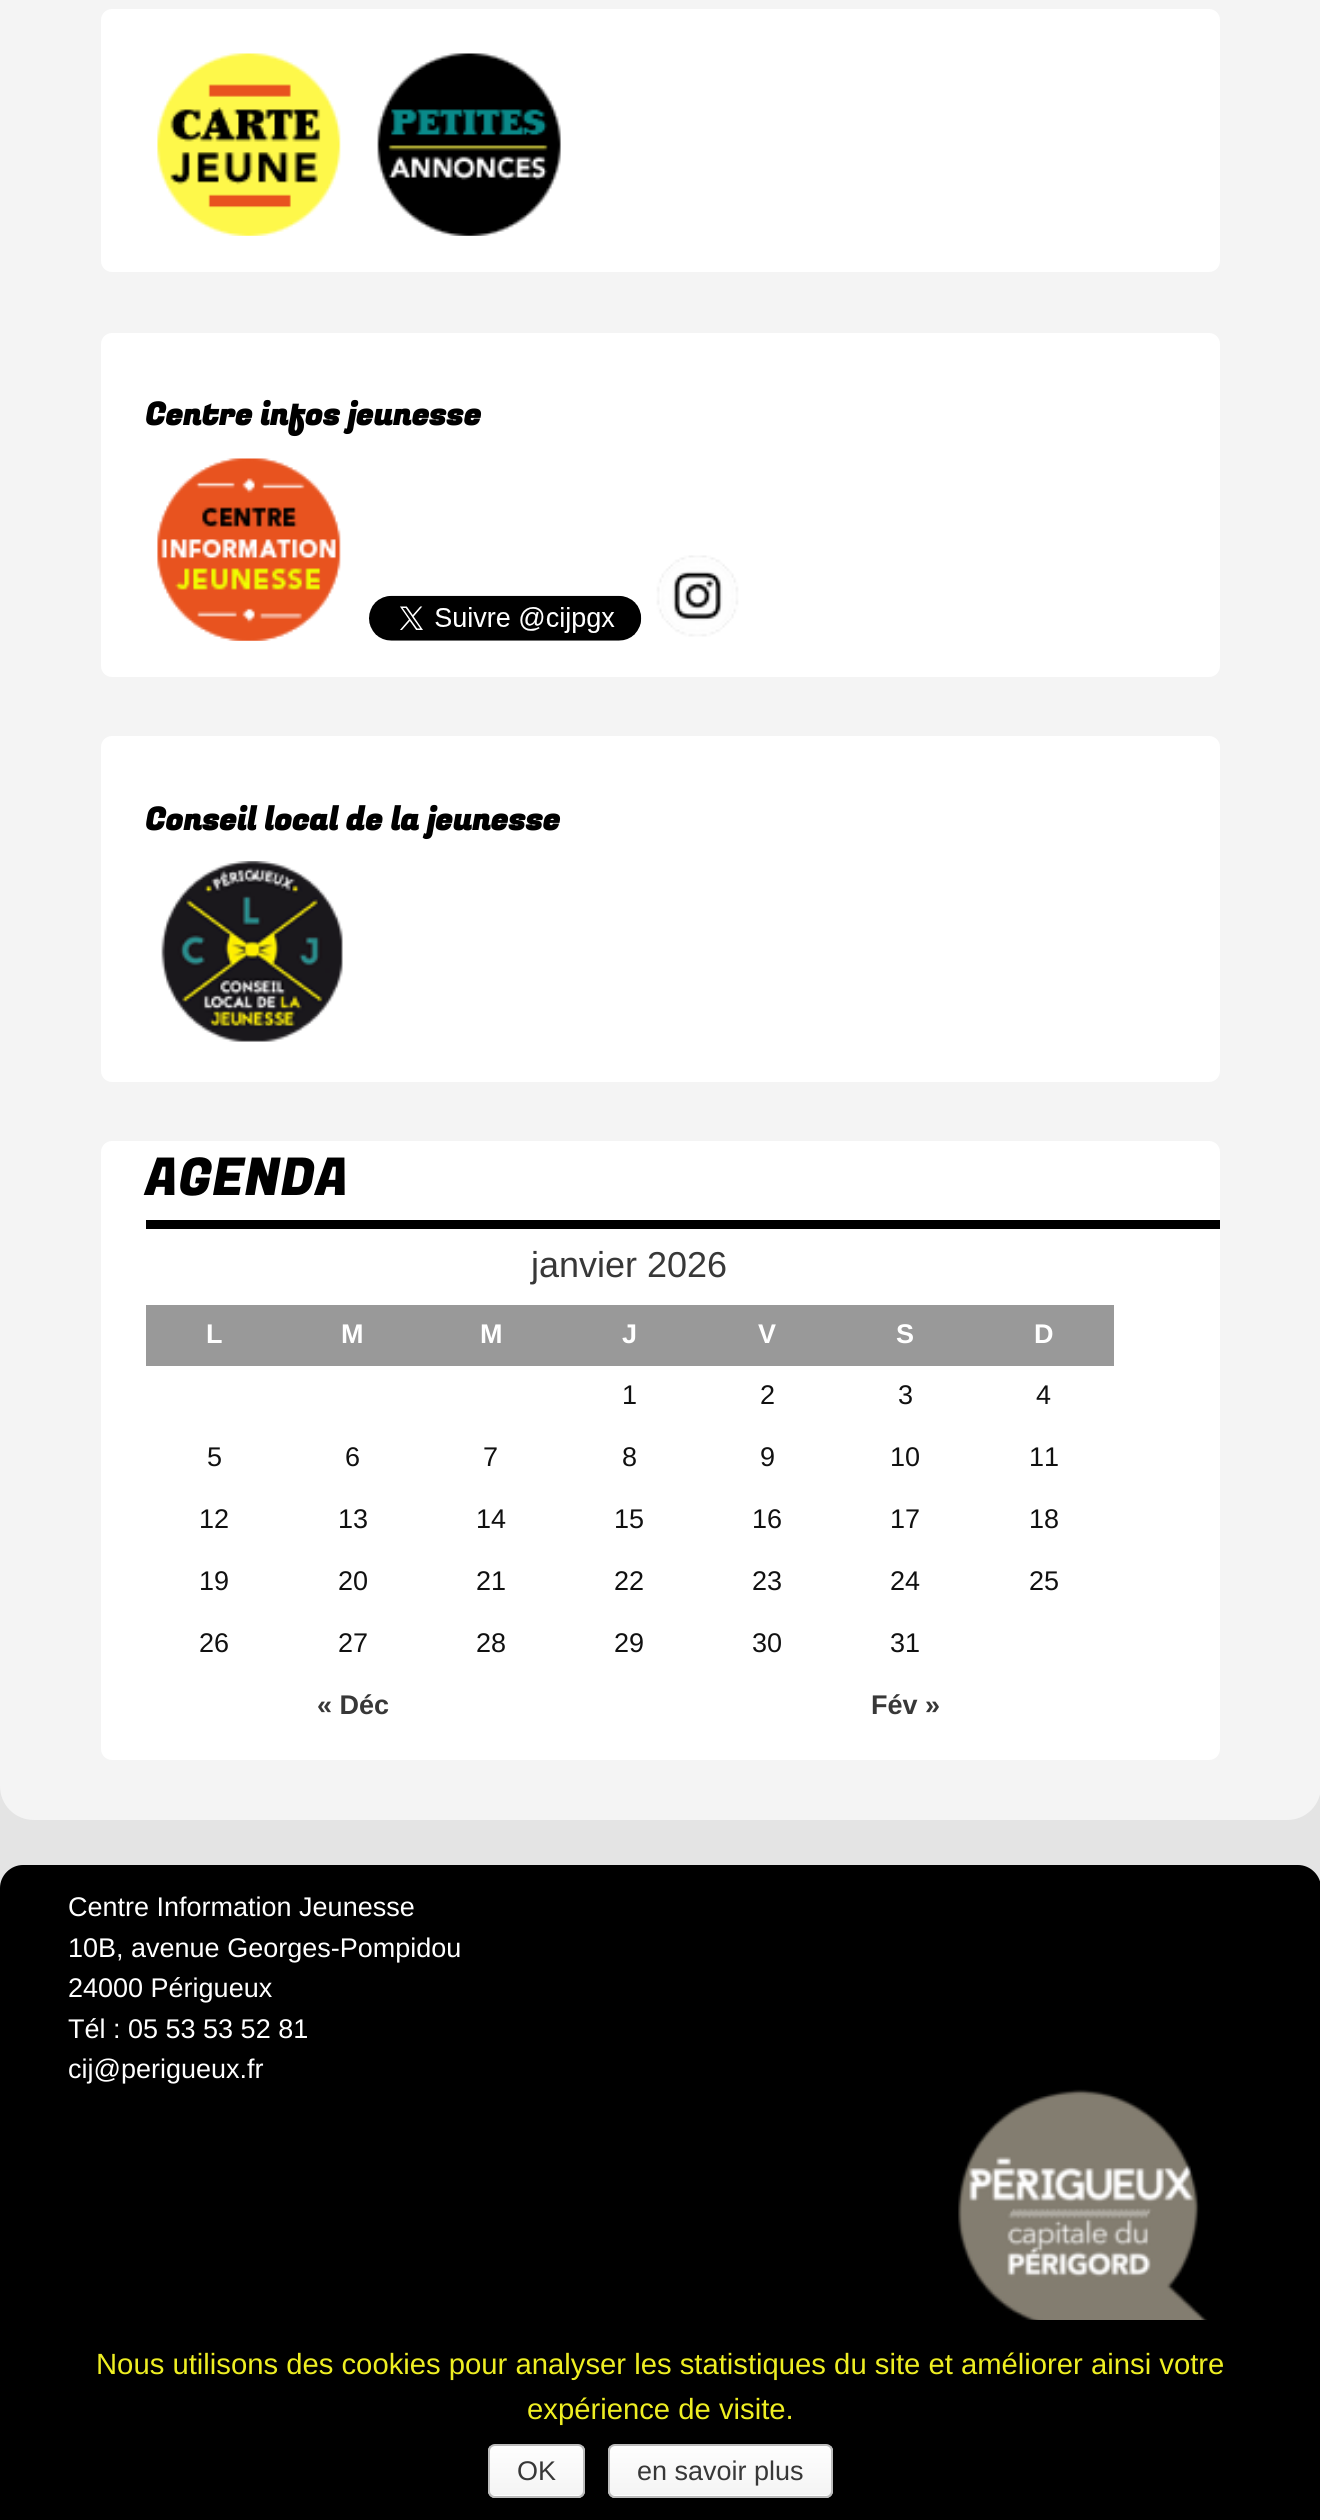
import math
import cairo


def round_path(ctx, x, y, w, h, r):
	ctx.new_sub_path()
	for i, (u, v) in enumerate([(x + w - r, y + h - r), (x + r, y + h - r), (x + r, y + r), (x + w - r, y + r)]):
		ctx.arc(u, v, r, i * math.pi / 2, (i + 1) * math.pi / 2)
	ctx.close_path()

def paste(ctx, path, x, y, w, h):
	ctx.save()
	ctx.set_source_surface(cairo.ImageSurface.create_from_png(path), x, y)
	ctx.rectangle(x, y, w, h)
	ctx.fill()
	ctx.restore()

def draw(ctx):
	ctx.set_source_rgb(0.894, 0.894, 0.894)
	ctx.paint()
	ctx.set_source_rgb(0.957, 0.957, 0.957)
	ctx.new_path()
	ctx.move_to(0, -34)
	ctx.line_to(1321, -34)
	ctx.line_to(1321, 1786)
	ctx.curve_to(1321, 1805, 1306, 1820, 1287, 1820)
	ctx.line_to(34, 1820)
	ctx.curve_to(15, 1820, 0, 1805, 0, 1786)
	ctx.close_path()
	ctx.fill()
	ctx.set_source_rgb(1, 1, 1)
	round_path(ctx, 101, 9, 1119, 263, 11)
	ctx.fill()
	paste(ctx, 'media/1.png', 157, 53, 184, 183)
	paste(ctx, 'media/2.png', 377, 53, 184, 183)
	round_path(ctx, 101, 333, 1119, 344, 11)
	ctx.fill()
	ctx.select_font_face('Fugaz One', cairo.FONT_SLANT_NORMAL, cairo.FONT_WEIGHT_BOLD)
	ctx.set_font_size(31.5)
	ctx.set_source_rgb(0, 0, 0)
	ctx.move_to(145, 425)
	ctx.show_text('Centre infos jeunesse')
	paste(ctx, 'media/3.png', 157, 458, 184, 183)
	paste(ctx, 'media/4.png', 369, 595, 273, 46)
	paste(ctx, 'media/5.png', 656, 555, 83, 82)
	ctx.set_source_rgb(1, 1, 1)
	round_path(ctx, 101, 736, 1119, 346, 11)
	ctx.fill()
	ctx.set_source_rgb(0, 0, 0)
	ctx.move_to(145, 830)
	ctx.show_text('Conseil local de la jeunesse')
	paste(ctx, 'media/6.png', 161, 861, 182, 181)
	ctx.set_source_rgb(1, 1, 1)
	round_path(ctx, 101, 1141, 1119, 619, 11)
	ctx.fill()
	ctx.set_source_rgb(0, 0, 0)
	ctx.rectangle(146, 1220, 1074, 9)
	ctx.fill()
	ctx.select_font_face('Fugaz One')
	ctx.set_font_size(52)
	ctx.move_to(145, 1195)
	ctx.show_text('AGENDA')
	ctx.select_font_face('Liberation Sans')
	ctx.set_font_size(36)
	ctx.set_source_rgb(0.22, 0.22, 0.22)
	ctx.move_to(531, 1277)
	ctx.show_text('janvier 2026')
	ctx.set_source_rgb(0.6, 0.6, 0.6)
	ctx.rectangle(146, 1305, 968, 61)
	ctx.fill()
	ctx.select_font_face('Liberation Sans', cairo.FONT_SLANT_NORMAL, cairo.FONT_WEIGHT_BOLD)
	ctx.set_font_size(27)
	ctx.set_source_rgb(1, 1, 1)
	for x, y, s in [
		(206, 1343, 'L'),
		(341, 1343, 'M'),
		(480, 1343, 'M'),
		(622, 1343, 'J'),
		(758, 1343, 'V'),
		(896, 1343, 'S'),
		(1034, 1343, 'D'),
	]:
		ctx.move_to(x, y)
		ctx.show_text(s)
	ctx.select_font_face('Liberation Sans')
	ctx.set_source_rgb(0.067, 0.067, 0.067)
	for x, y, s in [
		(622, 1404, '1'),
		(760, 1404, '2'),
		(898, 1404, '3'),
		(1036, 1404, '4'),
		(207, 1466, '5'),
		(345, 1466, '6'),
		(483, 1466, '7'),
		(622, 1466, '8'),
		(760, 1466, '9'),
		(890, 1466, '10'),
		(1029, 1466, '11'),
		(199, 1528, '12'),
		(338, 1528, '13'),
		(476, 1528, '14'),
		(614, 1528, '15'),
		(752, 1528, '16'),
		(890, 1528, '17'),
		(1029, 1528, '18'),
		(199, 1590, '19'),
		(338, 1590, '20'),
		(476, 1590, '21'),
		(614, 1590, '22'),
		(752, 1590, '23'),
		(890, 1590, '24'),
		(1029, 1590, '25'),
		(199, 1652, '26'),
		(338, 1652, '27'),
		(476, 1652, '28'),
		(614, 1652, '29'),
		(752, 1652, '30'),
		(890, 1652, '31'),
	]:
		ctx.move_to(x, y)
		ctx.show_text(s)
	ctx.select_font_face('Liberation Sans', cairo.FONT_SLANT_NORMAL, cairo.FONT_WEIGHT_BOLD)
	ctx.set_source_rgb(0.22, 0.22, 0.22)
	ctx.move_to(317, 1714)
	ctx.show_text('« Déc')
	ctx.move_to(871, 1714)
	ctx.show_text('Fév »')
	ctx.set_source_rgb(0, 0, 0)
	ctx.new_path()
	ctx.move_to(23, 1865)
	ctx.line_to(1298, 1865)
	ctx.curve_to(1310.5, 1865, 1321, 1875.5, 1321, 1888)
	ctx.line_to(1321, 2376)
	ctx.line_to(0, 2376)
	ctx.line_to(0, 1888)
	ctx.curve_to(0, 1875.5, 10.5, 1865, 23, 1865)
	ctx.close_path()
	ctx.fill()
	ctx.select_font_face('Liberation Sans')
	ctx.set_source_rgb(1, 1, 1)
	for x, y, s in [
		(68, 1916, 'Centre Information Jeunesse'),
		(68, 1957, '10B, avenue Georges-Pompidou'),
		(68, 1997, '24000 Périgueux'),
		(68, 2038, 'Tél : 05 53 53 52 81'),
		(68, 2078, 'cij@perigueux.fr'),
	]:
		ctx.move_to(x, y)
		ctx.show_text(s)
	paste(ctx, 'media/7.png', 958, 2089, 250, 231)
	ctx.set_source_rgb(0, 0, 0)
	ctx.rectangle(0, 2376, 1320, 144)
	ctx.fill()
	ctx.set_font_size(29.25)
	ctx.set_source_rgb(0.933, 0.933, 0.133)
	ctx.move_to(96, 2374)
	ctx.show_text('Nous utilisons des cookies pour analyser les statistiques du site et améliorer ainsi votre')
	ctx.move_to(527, 2419)
	ctx.show_text('expérience de visite.')
	ctx.save()
	round_path(ctx, 488, 2444, 97, 54, 7)
	ctx.clip()
	gradient = cairo.LinearGradient(537, 2446, 537, 2495)
	gradient.add_color_stop_rgba(0, 0.996, 0.996, 0.996, 1)
	gradient.add_color_stop_rgba(1, 0.957, 0.957, 0.957, 1)
	ctx.set_source(gradient)
	ctx.rectangle(488, 2446, 97, 49)
	ctx.fill()
	gradient = cairo.LinearGradient(537, 2495, 537, 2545)
	gradient.add_color_stop_rgba(0, 0.996, 0.996, 0.996, 1)
	gradient.add_color_stop_rgba(1, 0.957, 0.957, 0.957, 1)
	ctx.set_source(gradient)
	ctx.rectangle(488, 2495, 97, 3)
	ctx.fill()
	ctx.restore()
	round_path(ctx, 489, 2445, 95, 52, 6)
	ctx.set_source_rgb(0.733, 0.733, 0.733)
	ctx.stroke()
	ctx.set_font_size(27)
	ctx.set_source_rgb(0.22, 0.22, 0.22)
	ctx.move_to(517, 2480)
	ctx.show_text('OK')
	ctx.save()
	round_path(ctx, 608, 2444, 225, 54, 7)
	ctx.clip()
	gradient = cairo.LinearGradient(720, 2446, 720, 2495)
	gradient.add_color_stop_rgba(0, 0.996, 0.996, 0.996, 1)
	gradient.add_color_stop_rgba(1, 0.957, 0.957, 0.957, 1)
	ctx.set_source(gradient)
	ctx.rectangle(608, 2446, 225, 49)
	ctx.fill()
	gradient = cairo.LinearGradient(720, 2495, 720, 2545)
	gradient.add_color_stop_rgba(0, 0.996, 0.996, 0.996, 1)
	gradient.add_color_stop_rgba(1, 0.957, 0.957, 0.957, 1)
	ctx.set_source(gradient)
	ctx.rectangle(608, 2495, 225, 3)
	ctx.fill()
	ctx.restore()
	round_path(ctx, 609, 2445, 223, 52, 6)
	ctx.set_source_rgb(0.733, 0.733, 0.733)
	ctx.stroke()
	ctx.set_source_rgb(0.22, 0.22, 0.22)
	ctx.move_to(637, 2480)
	ctx.show_text('en savoir plus')


surface = cairo.ImageSurface(cairo.FORMAT_RGB24, 1320, 2520)
ctx = cairo.Context(surface)
options = cairo.FontOptions()
options.set_hint_metrics(cairo.HINT_METRICS_OFF)
options.set_hint_style(cairo.HINT_STYLE_NONE)
ctx.set_font_options(options)
ctx.set_miter_limit(4)
draw(ctx)
surface.write_to_png('image.png')
